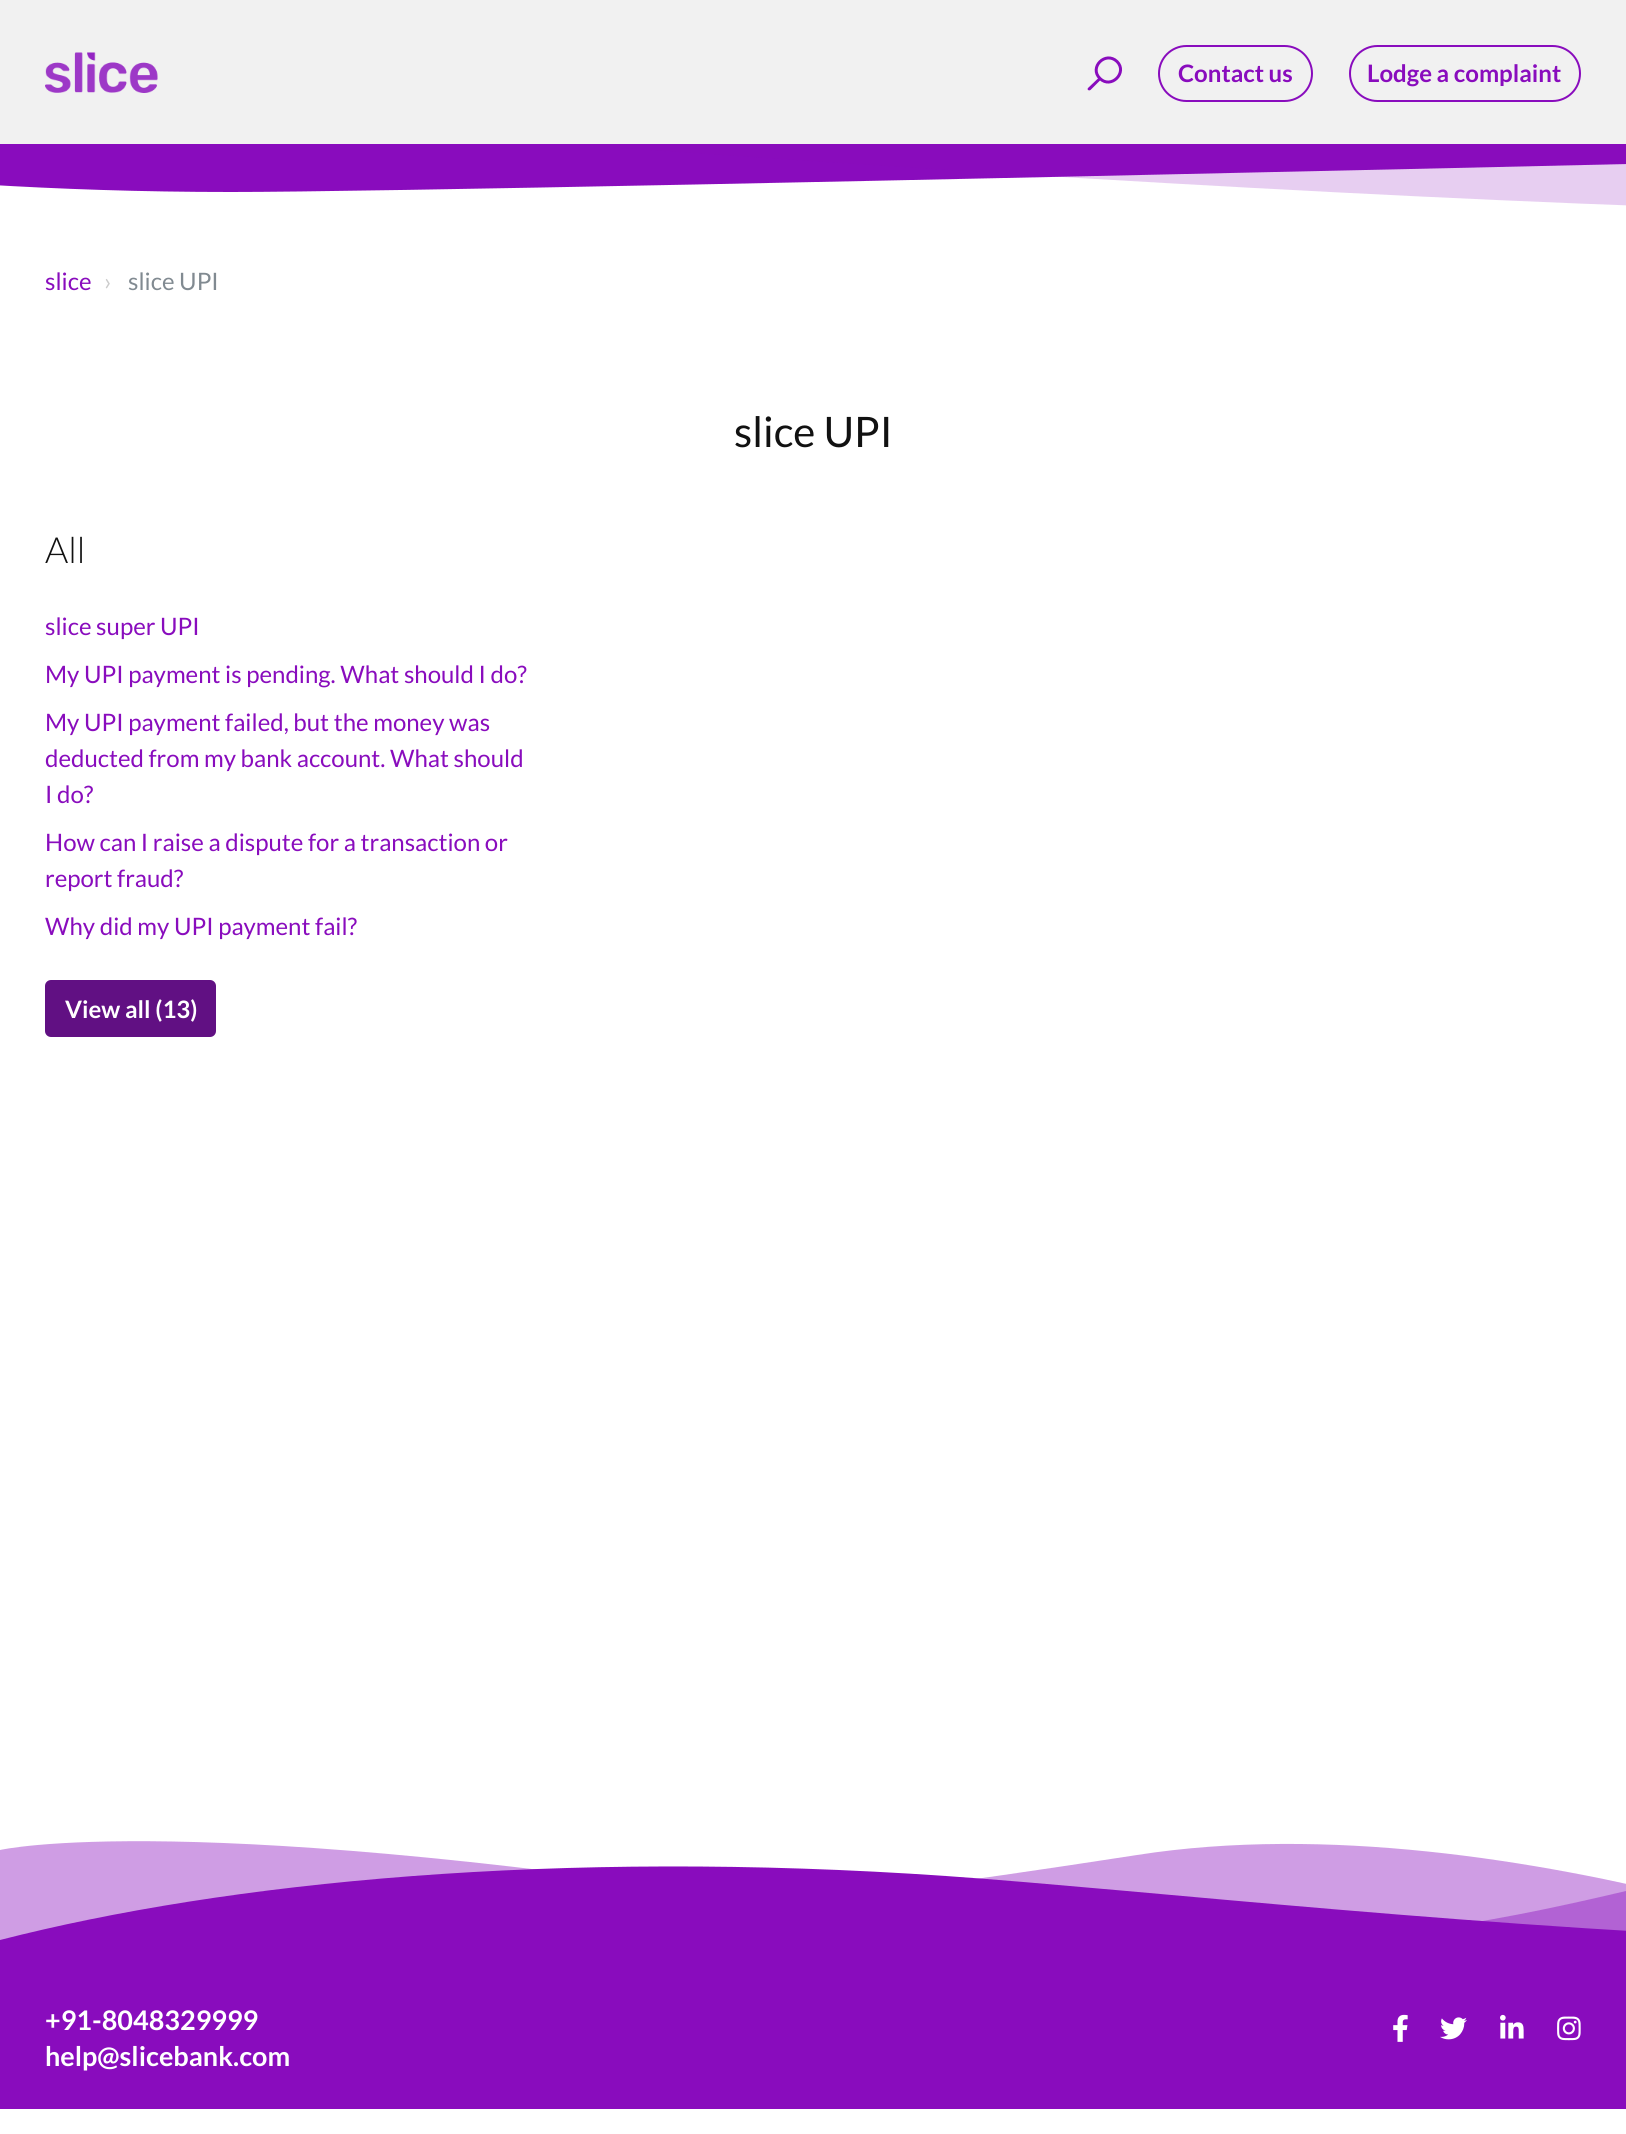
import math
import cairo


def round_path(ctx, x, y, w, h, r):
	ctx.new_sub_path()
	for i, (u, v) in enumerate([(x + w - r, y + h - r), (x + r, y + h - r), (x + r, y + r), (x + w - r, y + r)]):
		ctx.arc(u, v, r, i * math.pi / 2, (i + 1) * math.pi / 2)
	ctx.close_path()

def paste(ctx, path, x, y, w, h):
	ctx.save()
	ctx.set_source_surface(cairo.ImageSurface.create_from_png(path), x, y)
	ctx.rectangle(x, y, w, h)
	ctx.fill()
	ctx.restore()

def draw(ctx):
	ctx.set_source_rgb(1, 1, 1)
	ctx.paint()
	ctx.set_source_rgb(0.945, 0.945, 0.945)
	ctx.rectangle(0, 0, 1626, 144)
	ctx.fill()
	paste(ctx, 'media/1.png', 45, 52, 113, 41)
	ctx.new_path()
	ctx.move_to(1100, 78.5)
	ctx.curve_to(1111, 89.5, 1128, 72.5, 1117, 61.5)
	ctx.curve_to(1105.5, 50.5, 1088.5, 67.5, 1100, 78.5)
	ctx.close_path()
	ctx.set_source_rgb(0.537, 0.047, 0.741)
	ctx.set_line_width(3)
	ctx.stroke()
	ctx.new_path()
	ctx.move_to(1099, 77.5)
	ctx.line_to(1101, 79.5)
	ctx.line_to(1090.5, 90)
	ctx.curve_to(1089.5, 90.5, 1089, 90.5, 1088, 90)
	ctx.curve_to(1087.5, 89.5, 1087.5, 88.5, 1088, 88)
	ctx.close_path()
	ctx.fill()
	round_path(ctx, 1159, 46, 153, 55, 27.5)
	ctx.set_line_width(2)
	ctx.stroke()
	ctx.select_font_face('Lato', cairo.FONT_SLANT_NORMAL, cairo.FONT_WEIGHT_BOLD)
	ctx.set_font_size(24)
	ctx.move_to(1178, 82)
	ctx.show_text('Contact us')
	round_path(ctx, 1350, 46, 230, 55, 27.5)
	ctx.stroke()
	ctx.move_to(1367, 82)
	ctx.show_text('Lodge a complaint')
	ctx.new_path()
	ctx.move_to(231, 192)
	ctx.curve_to(500, 192, 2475, 144, 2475, 144)
	ctx.line_to(-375, 144)
	ctx.curve_to(-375, 144, -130, 192, 231, 192)
	ctx.close_path()
	ctx.fill()
	ctx.save()
	ctx.rectangle(0, 144, 1626, 71)
	ctx.clip()
	ctx.set_source_rgba(0.537, 0.047, 0.741, 0.2)
	ctx.new_path()
	ctx.move_to(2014, 214)
	ctx.curve_to(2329, 214, 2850, 101, 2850, 101)
	ctx.line_to(0, 101)
	ctx.curve_to(0, 101, 1345, 214, 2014, 214)
	ctx.close_path()
	ctx.fill()
	ctx.restore()
	ctx.select_font_face('Lato')
	ctx.move_to(45, 290)
	ctx.show_text('slice')
	ctx.set_source_rgb(0.8, 0.8, 0.8)
	ctx.move_to(104, 290)
	ctx.show_text('›')
	ctx.set_source_rgb(0.506, 0.541, 0.569)
	ctx.move_to(128, 290)
	ctx.show_text('slice UPI')
	ctx.set_font_size(42)
	ctx.set_source_rgb(0.067, 0.067, 0.067)
	ctx.move_to(734, 447)
	ctx.show_text('slice UPI')
	ctx.select_font_face('Lato Light')
	ctx.set_font_size(36)
	ctx.move_to(45, 563)
	ctx.show_text('All')
	ctx.select_font_face('Lato')
	ctx.set_font_size(24)
	ctx.set_source_rgb(0.537, 0.047, 0.741)
	for x, y, s in [
		(45, 635, 'slice super UPI'),
		(45, 683, 'My UPI payment is pending. What should I do?'),
		(45, 731, 'My UPI payment failed, but the money was'),
		(45, 767, 'deducted from my bank account. What should'),
		(45, 803, 'I do?'),
		(45, 851, 'How can I raise a dispute for a transaction or'),
		(45, 887, 'report fraud?'),
		(45, 935, 'Why did my UPI payment fail?'),
	]:
		ctx.move_to(x, y)
		ctx.show_text(s)
	ctx.set_source_rgb(0.38, 0.063, 0.514)
	round_path(ctx, 45, 980, 171, 57, 6)
	ctx.fill()
	ctx.select_font_face('Lato', cairo.FONT_SLANT_NORMAL, cairo.FONT_WEIGHT_BOLD)
	ctx.set_source_rgb(1, 1, 1)
	ctx.move_to(65, 1018)
	ctx.show_text('View all (13)')
	ctx.set_source_rgb(0.537, 0.047, 0.741)
	ctx.rectangle(0, 1968, 1626, 141)
	ctx.fill()
	ctx.save()
	ctx.rectangle(0, 1818, 1626, 150)
	ctx.clip()
	ctx.set_source_rgba(0.537, 0.047, 0.741, 0.4)
	ctx.new_path()
	ctx.move_to(-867, 1930)
	ctx.curve_to(-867, 1930, -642, 1987, -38, 1960)
	ctx.curve_to(566, 1932, 761, 1913, 1137, 1855)
	ctx.curve_to(1513, 1796, 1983, 1992, 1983, 1992)
	ctx.line_to(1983, 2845)
	ctx.line_to(-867, 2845)
	ctx.close_path()
	ctx.fill()
	ctx.new_path()
	ctx.move_to(0, 1850)
	ctx.curve_to(0, 1850, 183, 1807, 829, 1911)
	ctx.curve_to(1474, 2015, 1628, 1846, 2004, 1823)
	ctx.curve_to(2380, 1800, 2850, 1895, 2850, 1895)
	ctx.line_to(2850, 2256)
	ctx.line_to(0, 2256)
	ctx.close_path()
	ctx.fill()
	ctx.set_source_rgb(0.537, 0.047, 0.741)
	ctx.new_path()
	ctx.move_to(0, 1940)
	ctx.curve_to(226, 1882, 556, 1849, 946, 1876)
	ctx.curve_to(1336, 1903, 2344, 2038, 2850, 1833)
	ctx.line_to(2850, 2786)
	ctx.line_to(0, 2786)
	ctx.close_path()
	ctx.fill()
	ctx.restore()
	ctx.set_font_size(27)
	ctx.set_source_rgb(1, 1, 1)
	ctx.move_to(45, 2030)
	ctx.show_text('+91-8048329999')
	ctx.move_to(45, 2066)
	ctx.show_text('help@slicebank.com')
	paste(ctx, 'media/2.png', 1393, 2014, 15, 28)
	paste(ctx, 'media/3.png', 1440, 2017, 27, 23)
	paste(ctx, 'media/4.png', 1500, 2014, 24, 25)
	paste(ctx, 'media/5.png', 1557, 2016, 24, 25)


surface = cairo.ImageSurface(cairo.FORMAT_RGB24, 1626, 2134)
ctx = cairo.Context(surface)
options = cairo.FontOptions()
options.set_hint_metrics(cairo.HINT_METRICS_OFF)
options.set_hint_style(cairo.HINT_STYLE_NONE)
ctx.set_font_options(options)
ctx.set_miter_limit(4)
draw(ctx)
surface.write_to_png('image.png')
